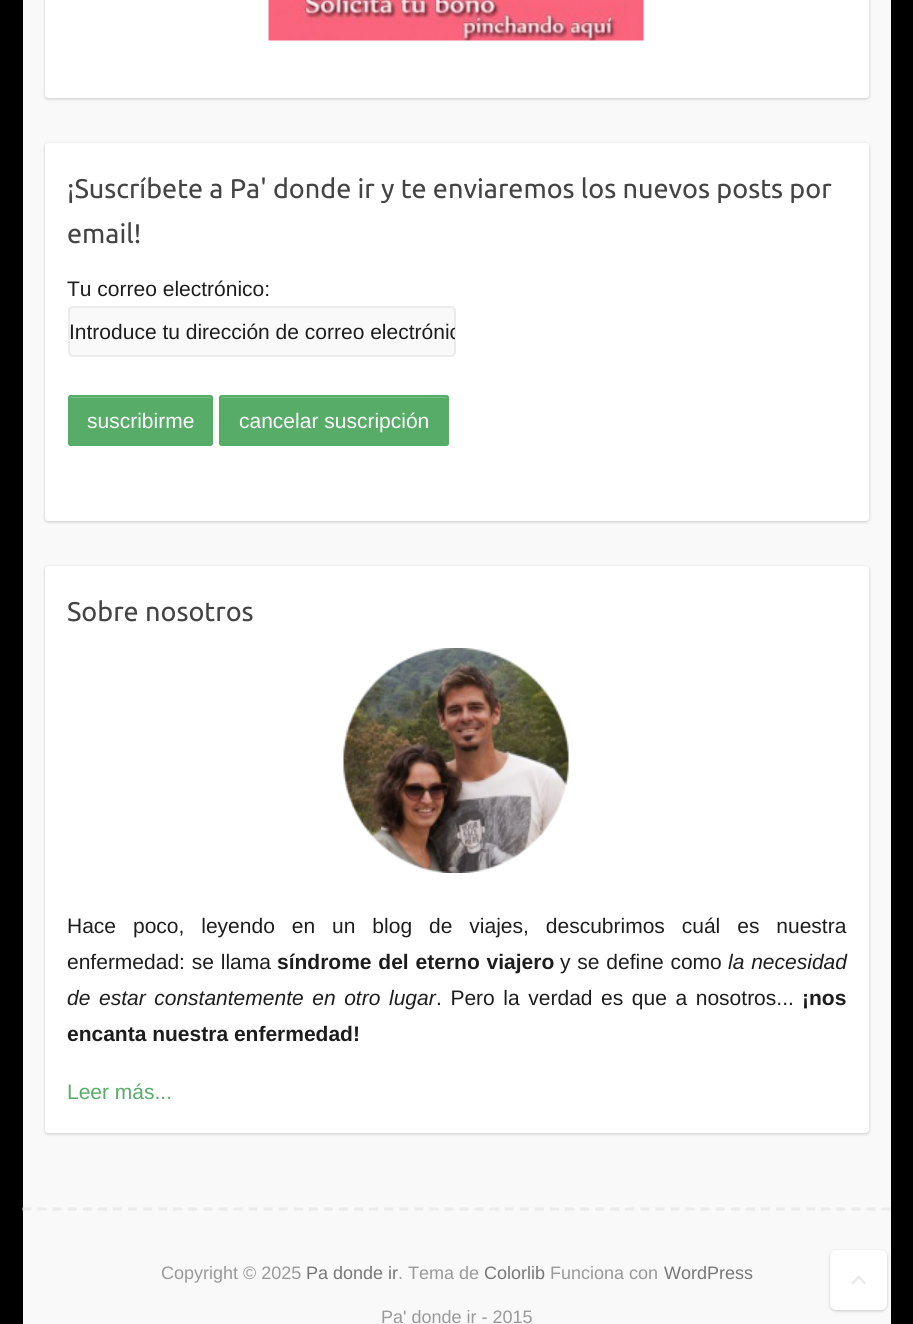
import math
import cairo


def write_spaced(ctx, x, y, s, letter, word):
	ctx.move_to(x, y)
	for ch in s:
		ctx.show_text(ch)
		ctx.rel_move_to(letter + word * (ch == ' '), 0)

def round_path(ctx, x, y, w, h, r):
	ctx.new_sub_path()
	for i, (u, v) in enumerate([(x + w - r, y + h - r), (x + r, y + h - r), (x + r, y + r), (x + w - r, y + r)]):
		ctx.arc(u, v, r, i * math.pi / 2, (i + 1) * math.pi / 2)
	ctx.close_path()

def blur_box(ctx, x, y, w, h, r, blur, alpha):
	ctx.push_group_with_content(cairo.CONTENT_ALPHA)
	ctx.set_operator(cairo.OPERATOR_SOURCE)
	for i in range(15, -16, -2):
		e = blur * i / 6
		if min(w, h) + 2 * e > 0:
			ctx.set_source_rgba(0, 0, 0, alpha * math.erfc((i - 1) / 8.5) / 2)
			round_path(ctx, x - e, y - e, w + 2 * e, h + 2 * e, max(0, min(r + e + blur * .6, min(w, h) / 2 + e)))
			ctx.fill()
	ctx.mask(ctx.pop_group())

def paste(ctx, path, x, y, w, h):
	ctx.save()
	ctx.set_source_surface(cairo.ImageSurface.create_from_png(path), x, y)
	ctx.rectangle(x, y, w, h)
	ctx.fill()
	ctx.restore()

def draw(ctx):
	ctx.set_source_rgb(0, 0, 0)
	ctx.paint()
	ctx.set_source_rgb(0.973, 0.973, 0.973)
	ctx.rectangle(23, 0, 868, 1324)
	ctx.fill()
	ctx.set_source_rgb(0, 0, 0)
	blur_box(ctx, 45, -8, 824, 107, 3, 1.5, 0.2)
	ctx.set_source_rgb(1, 1, 1)
	round_path(ctx, 45, -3, 824, 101, 3)
	ctx.fill()
	paste(ctx, 'media/1.png', 268, 0, 376, 41)
	ctx.set_source_rgb(0, 0, 0)
	blur_box(ctx, 45, 144, 824, 378, 3, 1.5, 0.2)
	ctx.set_source_rgb(1, 1, 1)
	round_path(ctx, 45, 143, 824, 378, 3)
	ctx.fill()
	ctx.select_font_face('Ubuntu')
	ctx.set_font_size(27)
	ctx.set_source_rgb(0.267, 0.267, 0.267)
	ctx.move_to(67, 198)
	ctx.show_text('¡Suscríbete a Pa\' donde ir y te enviaremos los nuevos posts por')
	ctx.move_to(67, 243)
	ctx.show_text('email!')
	ctx.select_font_face('Liberation Sans')
	ctx.set_font_size(21)
	ctx.set_source_rgb(0.114, 0.114, 0.114)
	ctx.move_to(67, 296)
	ctx.show_text('Tu correo electrónico:')
	ctx.set_source_rgb(0.976, 0.976, 0.976)
	round_path(ctx, 69, 307, 386, 49, 4)
	ctx.fill_preserve()
	ctx.set_source_rgb(0.918, 0.918, 0.918)
	ctx.stroke()
	ctx.save()
	ctx.rectangle(69, 314, 386, 36)
	ctx.clip()
	ctx.set_source_rgb(0.114, 0.114, 0.114)
	ctx.move_to(69, 339)
	ctx.show_text('Introduce tu dirección de correo electrónic')
	ctx.restore()
	ctx.set_source_rgb(0.341, 0.678, 0.408)
	round_path(ctx, 68, 395, 145, 51, 3)
	ctx.fill()
	ctx.set_source_rgb(0.475, 0.741, 0.525)
	ctx.new_path()
	ctx.move_to(70, 398)
	ctx.line_to(210, 398)
	ctx.curve_to(211, 398, 212, 398, 212, 399)
	ctx.curve_to(212, 398, 212, 396, 211, 396)
	ctx.line_to(70, 396)
	ctx.curve_to(69, 397, 69, 398, 69, 399)
	ctx.close_path()
	ctx.fill()
	round_path(ctx, 69, 396, 143, 49, 2)
	ctx.set_source_rgb(0.341, 0.678, 0.408)
	ctx.stroke()
	ctx.set_source_rgb(1, 1, 1)
	ctx.move_to(87, 428)
	ctx.show_text('suscribirme')
	ctx.set_source_rgb(0.341, 0.678, 0.408)
	round_path(ctx, 219, 395, 230, 51, 3)
	ctx.fill()
	ctx.set_source_rgb(0.475, 0.741, 0.525)
	ctx.new_path()
	ctx.move_to(222, 398)
	ctx.line_to(446, 398)
	ctx.line_to(447, 399)
	ctx.curve_to(447, 398, 447, 396, 446, 396)
	ctx.line_to(222, 396)
	ctx.curve_to(221, 396, 221, 397, 221, 398)
	ctx.close_path()
	ctx.fill()
	round_path(ctx, 220, 396, 228, 49, 2)
	ctx.set_source_rgb(0.341, 0.678, 0.408)
	ctx.stroke()
	ctx.set_source_rgb(1, 1, 1)
	ctx.move_to(239, 428)
	ctx.show_text('cancelar suscripción')
	ctx.set_source_rgb(0, 0, 0)
	blur_box(ctx, 45, 567, 824, 567, 3, 1.5, 0.2)
	ctx.set_source_rgb(1, 1, 1)
	round_path(ctx, 45, 566, 824, 567, 3)
	ctx.fill()
	ctx.select_font_face('Ubuntu')
	ctx.set_font_size(27)
	ctx.set_source_rgb(0.267, 0.267, 0.267)
	ctx.move_to(67, 621)
	ctx.show_text('Sobre nosotros')
	paste(ctx, 'media/2.png', 343, 648, 226, 225)
	ctx.select_font_face('Liberation Sans')
	ctx.set_font_size(21)
	ctx.set_source_rgb(0.114, 0.114, 0.114)
	write_spaced(ctx, 67, 933, 'Hace poco, leyendo en un blog de viajes, descubrimos cuál es nuestra', 0, 11.1)
	write_spaced(ctx, 67, 969, 'enfermedad: se llama', 0, 1)
	ctx.select_font_face('Liberation Sans', cairo.FONT_SLANT_NORMAL, cairo.FONT_WEIGHT_BOLD)
	write_spaced(ctx, 277, 969, 'síndrome del eterno viajero', 0, 1)
	ctx.select_font_face('Liberation Sans')
	write_spaced(ctx, 560, 969, 'y se define como', 0, 1)
	ctx.select_font_face('Liberation Sans', cairo.FONT_SLANT_ITALIC)
	write_spaced(ctx, 728, 969, 'la necesidad', 0, 1)
	write_spaced(ctx, 67, 1005, 'de estar constantemente en otro lugar', 0, 2.75)
	ctx.select_font_face('Liberation Sans')
	write_spaced(ctx, 436, 1005, '. Pero la verdad es que a nosotros...', 0, 2.75)
	ctx.select_font_face('Liberation Sans', cairo.FONT_SLANT_NORMAL, cairo.FONT_WEIGHT_BOLD)
	ctx.move_to(802, 1005)
	ctx.show_text('¡nos')
	ctx.move_to(67, 1041)
	ctx.show_text('encanta nuestra enfermedad!')
	ctx.select_font_face('Liberation Sans')
	ctx.set_source_rgb(0.341, 0.678, 0.408)
	ctx.move_to(67, 1099)
	ctx.show_text('Leer más...')
	ctx.new_path()
	ctx.move_to(22.5, 1209)
	ctx.line_to(891, 1209)
	ctx.set_source_rgb(0.918, 0.918, 0.918)
	ctx.set_line_width(3)
	ctx.set_dash([9, 6.07])
	ctx.stroke()
	ctx.set_font_size(18)
	ctx.set_source_rgb(0.6, 0.6, 0.6)
	ctx.move_to(161, 1279)
	ctx.show_text('Copyright © 2025')
	ctx.set_source_rgb(0.467, 0.467, 0.467)
	ctx.move_to(306, 1279)
	ctx.show_text('Pa donde ir')
	ctx.set_source_rgb(0.6, 0.6, 0.6)
	ctx.move_to(398, 1279)
	ctx.show_text('. Tema de')
	ctx.set_source_rgb(0.467, 0.467, 0.467)
	ctx.move_to(484, 1279)
	ctx.show_text('Colorlib')
	ctx.set_source_rgb(0.6, 0.6, 0.6)
	ctx.move_to(550, 1279)
	ctx.show_text('Funciona con')
	ctx.set_source_rgb(0.467, 0.467, 0.467)
	ctx.move_to(664, 1279)
	ctx.show_text('WordPress')
	ctx.set_source_rgb(0.6, 0.6, 0.6)
	ctx.move_to(381, 1323)
	ctx.show_text('Pa\' donde ir - 2015')
	ctx.set_source_rgb(0, 0, 0)
	blur_box(ctx, 830, 1251, 57, 60, 6, 1.5, 0.2)
	ctx.set_source_rgb(1, 1, 1)
	round_path(ctx, 830, 1250, 57, 60, 6)
	ctx.fill()
	paste(ctx, 'media/3.png', 851, 1275, 15, 10)


surface = cairo.ImageSurface(cairo.FORMAT_RGB24, 913, 1324)
ctx = cairo.Context(surface)
options = cairo.FontOptions()
options.set_hint_metrics(cairo.HINT_METRICS_OFF)
options.set_hint_style(cairo.HINT_STYLE_NONE)
ctx.set_font_options(options)
ctx.set_miter_limit(4)
draw(ctx)
surface.write_to_png('image.png')
